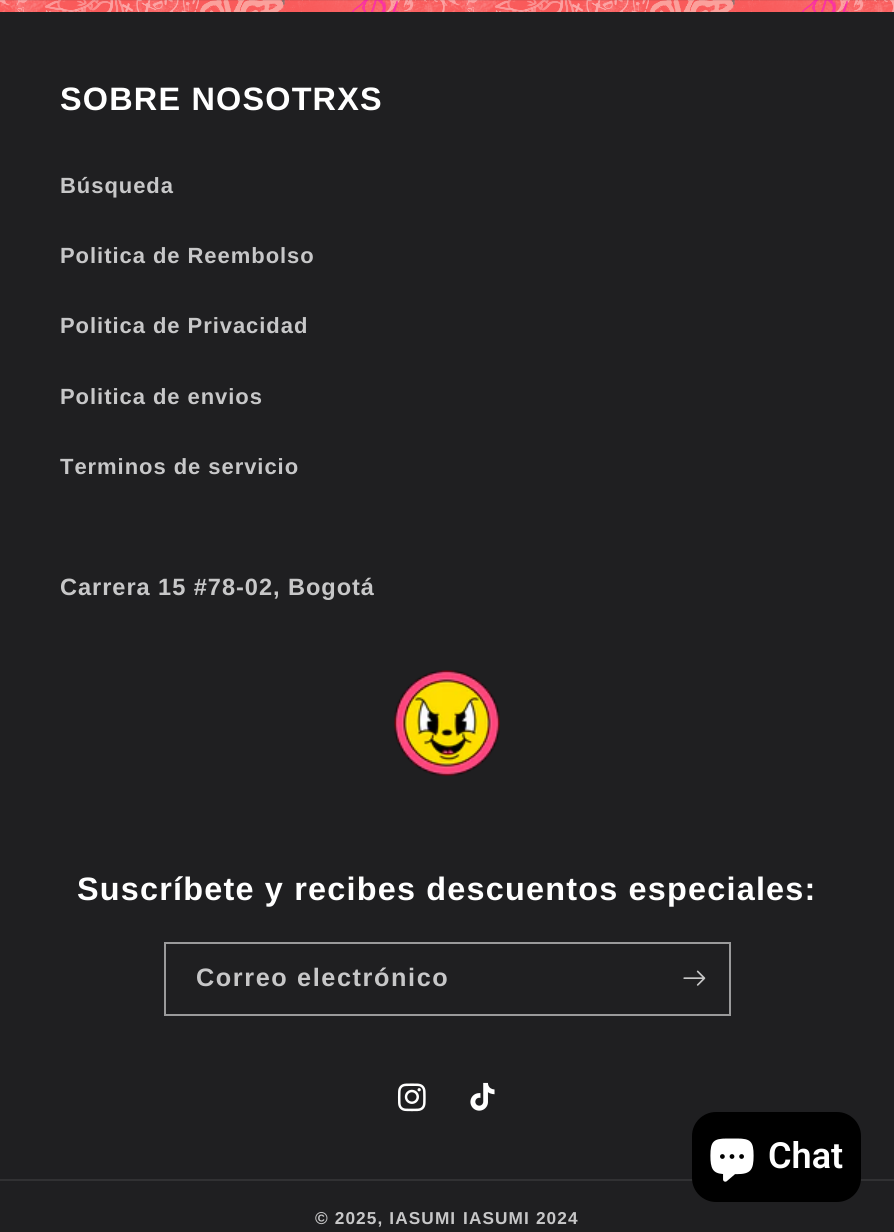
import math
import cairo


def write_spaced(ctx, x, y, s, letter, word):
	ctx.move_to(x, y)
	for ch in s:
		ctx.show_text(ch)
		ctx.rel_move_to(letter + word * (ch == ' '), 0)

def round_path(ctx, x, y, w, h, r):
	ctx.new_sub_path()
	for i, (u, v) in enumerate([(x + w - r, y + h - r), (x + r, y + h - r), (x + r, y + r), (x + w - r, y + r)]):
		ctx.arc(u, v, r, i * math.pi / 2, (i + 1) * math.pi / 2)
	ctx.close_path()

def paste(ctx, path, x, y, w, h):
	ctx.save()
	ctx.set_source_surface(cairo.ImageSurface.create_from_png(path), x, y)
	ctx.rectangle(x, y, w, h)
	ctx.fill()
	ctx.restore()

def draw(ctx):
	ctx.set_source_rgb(0.973, 0.353, 0.353)
	ctx.paint()
	paste(ctx, 'media/1.png', 0, 0, 894, 12)
	ctx.set_source_rgba(0.122, 0.122, 0.129, 0.08)
	ctx.rectangle(0, 0, 894, 1)
	ctx.fill()
	ctx.set_source_rgb(0.122, 0.122, 0.129)
	ctx.rectangle(0, 12, 894, 1220)
	ctx.fill()
	ctx.select_font_face('Liberation Sans', cairo.FONT_SLANT_NORMAL, cairo.FONT_WEIGHT_BOLD)
	ctx.set_font_size(32.4)
	ctx.set_source_rgb(1, 1, 1)
	write_spaced(ctx, 60, 110, 'SOBRE NOSOTRXS', 1.2, 0)
	ctx.set_font_size(22)
	ctx.set_source_rgb(0.78, 0.78, 0.784)
	for x, y, s in [
		(60, 193, 'Búsqueda'),
		(60, 263, 'Politica de Reembolso'),
		(60, 333, 'Politica de Privacidad'),
		(60, 404, 'Politica de envios'),
		(60, 474, 'Terminos de servicio'),
	]:
		write_spaced(ctx, x, y, s, 0.95, 0)
	ctx.set_font_size(23.6)
	write_spaced(ctx, 60, 595, 'Carrera 15 #78-02, Bogotá', 0.95, 0)
	paste(ctx, 'media/2.png', 394, 670, 106, 106)
	ctx.set_font_size(32.4)
	ctx.set_source_rgb(1, 1, 1)
	write_spaced(ctx, 77, 900, 'Suscríbete y recibes descuentos especiales:', 1.2, 0)
	ctx.rectangle(165, 943, 565, 72)
	ctx.set_source_rgb(0.604, 0.604, 0.608)
	ctx.stroke()
	ctx.set_font_size(25.25)
	ctx.set_source_rgb(0.78, 0.78, 0.784)
	write_spaced(ctx, 196, 986, 'Correo electrónico', 1.6, 0)
	paste(ctx, 'media/3.png', 683, 970, 23, 16)
	paste(ctx, 'media/4.png', 397, 1083, 29, 29)
	paste(ctx, 'media/5.png', 470, 1082, 25, 29)
	ctx.set_source_rgb(0.192, 0.192, 0.2)
	ctx.rectangle(0, 1179, 894, 2)
	ctx.fill()
	ctx.set_font_size(17.25)
	ctx.set_source_rgb(0.78, 0.78, 0.784)
	write_spaced(ctx, 315, 1224, '© 2025, IASUMI', 1.1, 0)
	write_spaced(ctx, 463, 1224, 'IASUMI 2024', 1.1, 0)
	ctx.set_source_rgb(0, 0, 0)
	round_path(ctx, 692, 1112, 169, 90, 24)
	ctx.fill()
	paste(ctx, 'media/6.png', 710, 1138, 44, 44)
	ctx.select_font_face('Roboto SemiBold')
	ctx.set_font_size(36)
	ctx.set_source_rgb(1, 1, 1)
	ctx.move_to(768, 1168)
	ctx.show_text('Chat')


surface = cairo.ImageSurface(cairo.FORMAT_RGB24, 894, 1232)
ctx = cairo.Context(surface)
options = cairo.FontOptions()
options.set_hint_metrics(cairo.HINT_METRICS_OFF)
options.set_hint_style(cairo.HINT_STYLE_NONE)
ctx.set_font_options(options)
ctx.set_miter_limit(4)
draw(ctx)
surface.write_to_png('image.png')
